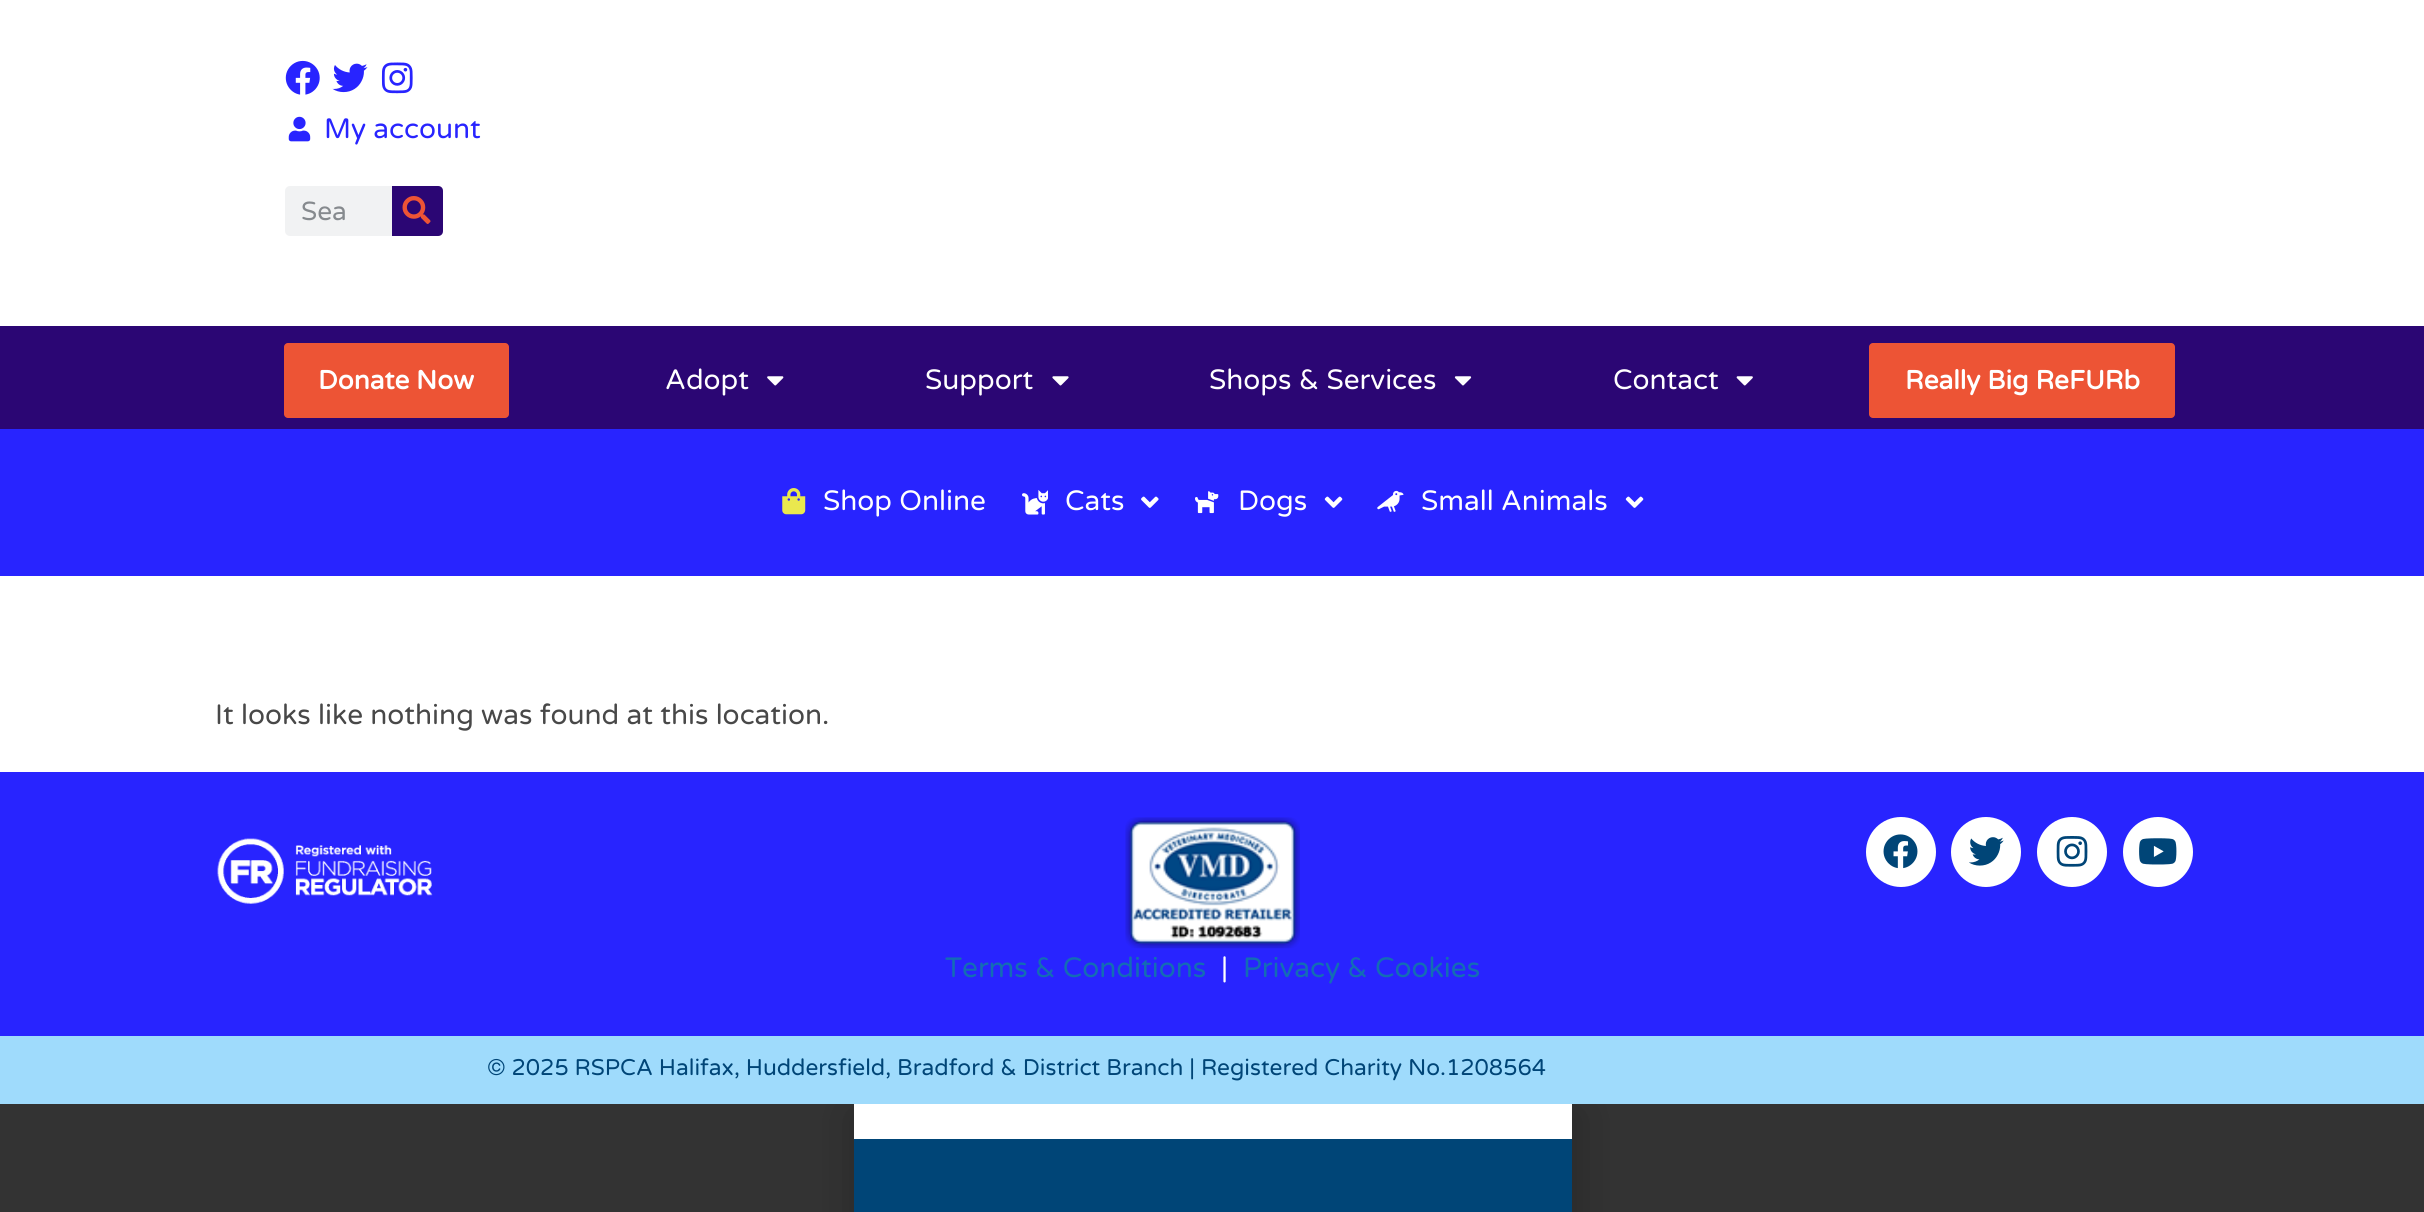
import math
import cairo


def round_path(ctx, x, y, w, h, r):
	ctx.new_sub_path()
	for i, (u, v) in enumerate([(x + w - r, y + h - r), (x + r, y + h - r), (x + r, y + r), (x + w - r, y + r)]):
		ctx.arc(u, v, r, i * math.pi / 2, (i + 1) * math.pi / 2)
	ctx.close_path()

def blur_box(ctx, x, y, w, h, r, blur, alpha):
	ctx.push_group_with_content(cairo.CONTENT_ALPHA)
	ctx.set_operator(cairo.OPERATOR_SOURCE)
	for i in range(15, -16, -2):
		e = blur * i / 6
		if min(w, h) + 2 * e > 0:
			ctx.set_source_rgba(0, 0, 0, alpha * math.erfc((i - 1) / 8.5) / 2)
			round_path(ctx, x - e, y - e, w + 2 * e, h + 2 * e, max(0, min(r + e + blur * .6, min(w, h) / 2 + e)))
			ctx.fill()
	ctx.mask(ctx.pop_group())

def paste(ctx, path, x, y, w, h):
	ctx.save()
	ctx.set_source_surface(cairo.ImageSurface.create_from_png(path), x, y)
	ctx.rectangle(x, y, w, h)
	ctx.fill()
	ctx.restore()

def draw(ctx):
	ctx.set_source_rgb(1, 1, 1)
	ctx.paint()
	paste(ctx, 'media/1.png', 285, 60, 35, 35)
	paste(ctx, 'media/2.png', 332, 63, 36, 30)
	paste(ctx, 'media/3.png', 381, 62, 32, 32)
	paste(ctx, 'media/4.png', 288, 116, 23, 26)
	ctx.select_font_face('Varela Round')
	ctx.set_font_size(28)
	ctx.set_source_rgb(0.157, 0.141, 1)
	ctx.move_to(324, 138)
	ctx.show_text('My account')
	ctx.set_source_rgb(0.945, 0.949, 0.953)
	round_path(ctx, 285, 186, 158, 50, 5)
	ctx.fill()
	ctx.set_font_size(26.25)
	ctx.set_source_rgb(0.525, 0.541, 0.557)
	ctx.move_to(301, 220)
	ctx.show_text('Sea')
	ctx.set_source_rgb(0.169, 0.027, 0.455)
	ctx.new_path()
	ctx.move_to(392, 186)
	ctx.line_to(438, 186)
	ctx.curve_to(441, 186, 443, 188, 443, 191)
	ctx.line_to(443, 231)
	ctx.curve_to(443, 234, 441, 236, 438, 236)
	ctx.line_to(392, 236)
	ctx.close_path()
	ctx.fill()
	paste(ctx, 'media/5.png', 402, 196, 29, 28)
	ctx.rectangle(0, 326, 2424, 103)
	ctx.fill()
	ctx.set_source_rgb(0.929, 0.329, 0.208)
	round_path(ctx, 284, 343, 225, 75, 4)
	ctx.fill()
	ctx.select_font_face('Varela Round', cairo.FONT_SLANT_NORMAL, cairo.FONT_WEIGHT_BOLD)
	ctx.set_source_rgb(1, 1, 1)
	ctx.move_to(318, 389)
	ctx.show_text('Donate Now')
	ctx.select_font_face('Varela Round')
	ctx.set_font_size(28)
	ctx.move_to(665, 389)
	ctx.show_text('Adopt')
	paste(ctx, 'media/6.png', 767, 376, 17, 10)
	ctx.move_to(925, 389)
	ctx.show_text('Support')
	paste(ctx, 'media/7.png', 1052, 376, 17, 10)
	ctx.move_to(1209, 389)
	ctx.show_text('Shops & Services')
	paste(ctx, 'media/8.png', 1454, 376, 18, 10)
	ctx.move_to(1613, 389)
	ctx.show_text('Contact')
	paste(ctx, 'media/9.png', 1736, 376, 17, 10)
	ctx.set_source_rgb(0.929, 0.329, 0.208)
	round_path(ctx, 1869, 343, 306, 75, 4)
	ctx.fill()
	ctx.select_font_face('Varela Round', cairo.FONT_SLANT_NORMAL, cairo.FONT_WEIGHT_BOLD)
	ctx.set_font_size(26.25)
	ctx.set_source_rgb(1, 1, 1)
	ctx.move_to(1905, 389)
	ctx.show_text('Really Big ReFURb')
	ctx.set_source_rgb(0.157, 0.141, 1)
	ctx.rectangle(0, 429, 2424, 147)
	ctx.fill()
	paste(ctx, 'media/10.png', 782, 488, 24, 27)
	ctx.select_font_face('Varela Round')
	ctx.set_font_size(28)
	ctx.set_source_rgb(1, 1, 1)
	ctx.move_to(823, 510)
	ctx.show_text('Shop Online')
	paste(ctx, 'media/11.png', 1022, 490, 26, 25)
	ctx.move_to(1065, 510)
	ctx.show_text('Cats')
	paste(ctx, 'media/12.png', 1141, 496, 18, 12)
	paste(ctx, 'media/13.png', 1195, 491, 24, 23)
	ctx.move_to(1238, 510)
	ctx.show_text('Dogs')
	paste(ctx, 'media/14.png', 1324, 496, 19, 12)
	paste(ctx, 'media/15.png', 1377, 490, 27, 22)
	ctx.move_to(1421, 510)
	ctx.show_text('Small Animals')
	paste(ctx, 'media/14.png', 1625, 496, 19, 12)
	ctx.set_source_rgb(0.282, 0.282, 0.282)
	ctx.move_to(215, 724)
	ctx.show_text('It looks like nothing was found at this location.')
	ctx.set_source_rgb(0.157, 0.141, 1)
	ctx.rectangle(0, 772, 2424, 264)
	ctx.fill()
	paste(ctx, 'media/16.png', 217, 838, 216, 66)
	ctx.set_source_rgb(1, 1, 1)
	ctx.arc(1901, 852, 35, 0, 2 * math.pi)
	ctx.fill()
	paste(ctx, 'media/17.png', 1883, 834, 35, 35)
	ctx.arc(1986, 852, 35, 0, 2 * math.pi)
	ctx.fill()
	paste(ctx, 'media/18.png', 1969, 837, 35, 29)
	ctx.arc(2072, 852, 35, 0, 2 * math.pi)
	ctx.fill()
	paste(ctx, 'media/19.png', 2056, 836, 32, 31)
	ctx.arc(2158, 852, 35, 0, 2 * math.pi)
	ctx.fill()
	paste(ctx, 'media/20.png', 2139, 838, 38, 27)
	paste(ctx, 'media/21.png', 1125, 817, 175, 132)
	ctx.set_source_rgb(0.075, 0.427, 0.706)
	ctx.move_to(945, 977)
	ctx.show_text('Terms & Conditions')
	ctx.set_source_rgb(1, 1, 1)
	ctx.move_to(1221, 977)
	ctx.show_text('|')
	ctx.set_source_rgb(0.075, 0.427, 0.706)
	ctx.move_to(1243, 977)
	ctx.show_text('Privacy & Cookies')
	ctx.set_source_rgb(0.2, 0.2, 0.2)
	ctx.rectangle(0, 1104, 2424, 108)
	ctx.fill()
	ctx.set_source_rgb(0, 0, 0)
	blur_box(ctx, 852, 1113, 728, 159, 0, 20, 0.2)
	ctx.set_source_rgb(0.624, 0.859, 0.988)
	ctx.rectangle(0, 1036, 2424, 68)
	ctx.fill()
	ctx.set_font_size(22.75)
	ctx.set_source_rgb(0, 0.271, 0.467)
	ctx.move_to(487, 1075)
	ctx.show_text('© 2025 RSPCA Halifax, Huddersfield, Bradford & District Branch | Registered Charity No.1208564')
	ctx.set_source_rgb(1, 1, 1)
	ctx.rectangle(854, 1104, 718, 35)
	ctx.fill()
	ctx.set_source_rgb(0, 0.271, 0.467)
	ctx.rectangle(854, 1139, 718, 73)
	ctx.fill()


surface = cairo.ImageSurface(cairo.FORMAT_RGB24, 2424, 1212)
ctx = cairo.Context(surface)
options = cairo.FontOptions()
options.set_hint_metrics(cairo.HINT_METRICS_OFF)
options.set_hint_style(cairo.HINT_STYLE_NONE)
ctx.set_font_options(options)
ctx.set_miter_limit(4)
draw(ctx)
surface.write_to_png('image.png')
